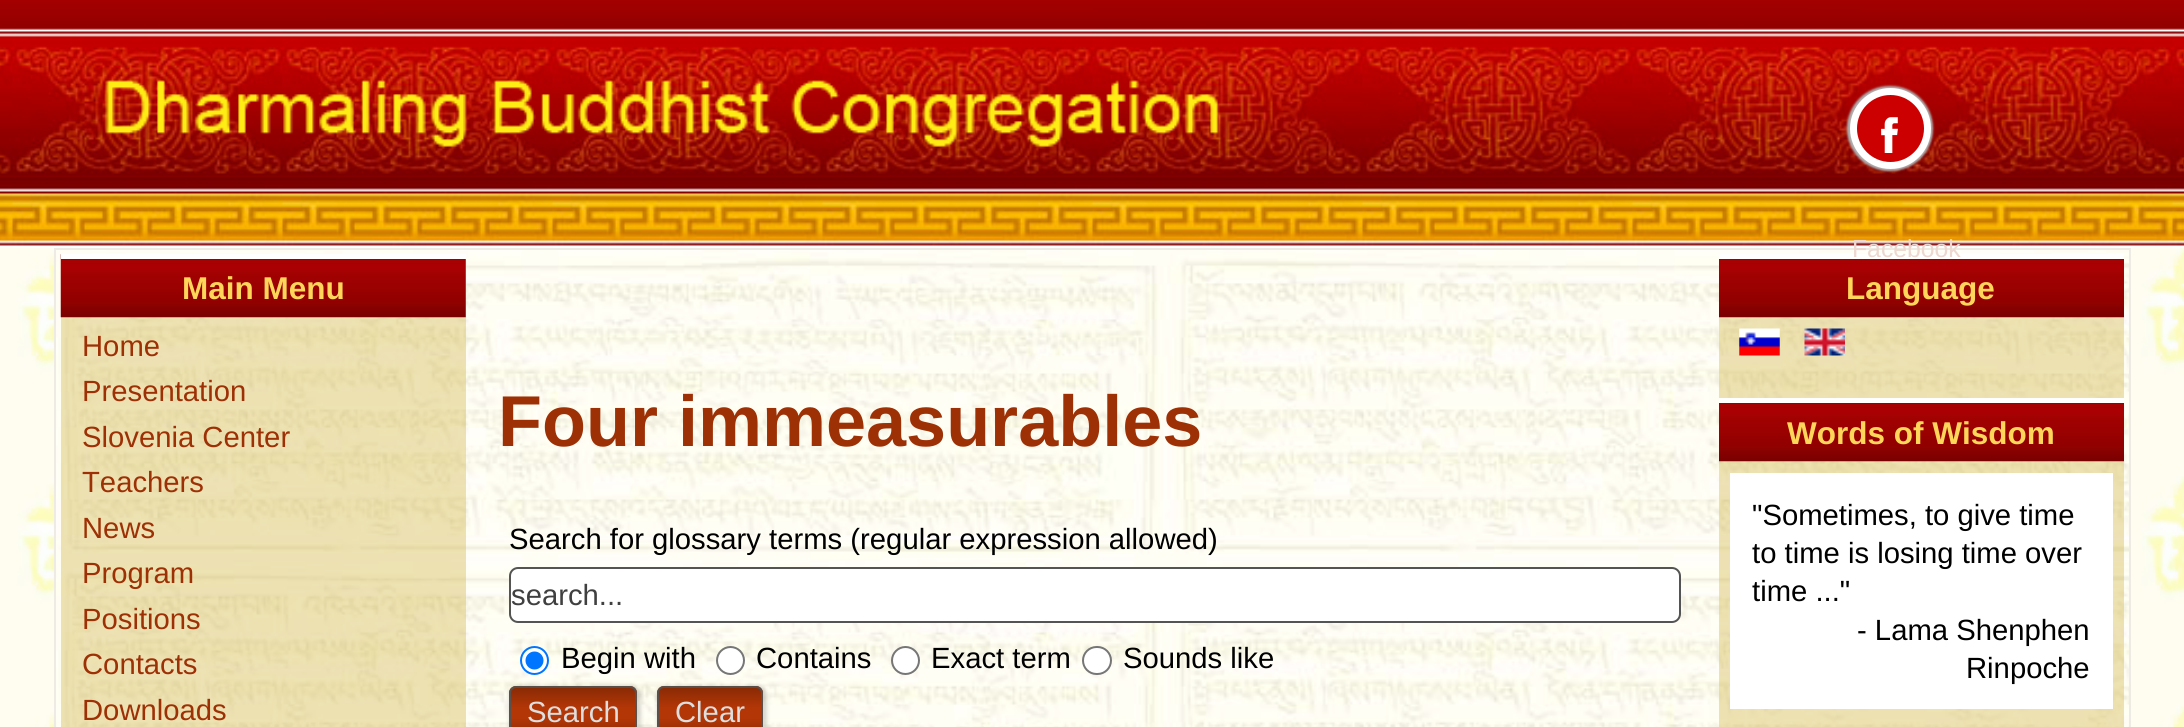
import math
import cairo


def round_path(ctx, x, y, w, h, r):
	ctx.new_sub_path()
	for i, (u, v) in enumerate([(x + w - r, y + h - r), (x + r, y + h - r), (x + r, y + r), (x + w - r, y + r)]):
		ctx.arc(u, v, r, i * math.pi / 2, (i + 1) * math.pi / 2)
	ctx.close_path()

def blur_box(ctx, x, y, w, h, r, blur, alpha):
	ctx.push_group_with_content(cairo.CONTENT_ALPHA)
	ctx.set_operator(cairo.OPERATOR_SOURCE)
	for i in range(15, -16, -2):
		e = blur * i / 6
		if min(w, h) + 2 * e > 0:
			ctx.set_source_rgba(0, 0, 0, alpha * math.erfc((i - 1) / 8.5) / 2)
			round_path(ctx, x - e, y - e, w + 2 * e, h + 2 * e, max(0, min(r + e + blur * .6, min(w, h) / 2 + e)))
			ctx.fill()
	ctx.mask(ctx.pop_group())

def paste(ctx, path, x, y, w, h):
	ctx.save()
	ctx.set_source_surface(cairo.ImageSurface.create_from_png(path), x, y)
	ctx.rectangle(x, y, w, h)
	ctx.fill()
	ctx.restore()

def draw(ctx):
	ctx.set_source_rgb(1, 1, 1)
	ctx.paint()
	paste(ctx, 'media/1.png', 0, 247, 2184, 480)
	paste(ctx, 'media/2.png', 0, 0, 2184, 248)
	paste(ctx, 'media/3.png', 105, 80, 1115, 67)
	ctx.set_source_rgb(0.686, 0.686, 0.686)
	blur_box(ctx, 1847, 86, 86, 85, 42.5, 1, 1)
	ctx.set_source_rgb(0.8, 0, 0)
	ctx.arc(1890.5, 128.5, 37, 0, 2 * math.pi)
	ctx.fill_preserve()
	ctx.set_source_rgb(1, 1, 1)
	ctx.set_line_width(7)
	ctx.stroke()
	paste(ctx, 'media/4.png', 1881, 117, 17, 36)
	paste(ctx, 'media/5.png', 56, 250, 2073, 477)
	ctx.rectangle(55, 249, 2075, 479)
	ctx.set_source_rgb(0.929, 0.918, 0.89)
	ctx.set_line_width(2)
	ctx.stroke()
	ctx.set_source_rgb(1, 1, 1)
	ctx.rectangle(1719, 254, 405, 5)
	ctx.fill()
	ctx.select_font_face('Liberation Sans')
	ctx.set_font_size(24.75)
	ctx.set_source_rgb(0.922, 0.843, 0.82)
	ctx.move_to(1852, 257)
	ctx.show_text('Facebook')
	ctx.set_source_rgba(0.82, 0.722, 0.318, 0.41)
	ctx.rectangle(61, 259, 405, 468)
	ctx.fill()
	paste(ctx, 'media/6.png', 60, 254, 406, 64)
	ctx.set_source_rgb(1, 1, 1)
	ctx.rectangle(61, 254, 405, 5)
	ctx.fill()
	ctx.select_font_face('Liberation Sans', cairo.FONT_SLANT_NORMAL, cairo.FONT_WEIGHT_BOLD)
	ctx.set_font_size(31.5)
	ctx.set_source_rgb(1, 0.839, 0.349)
	ctx.move_to(182, 299)
	ctx.show_text('Main Menu')
	ctx.select_font_face('Liberation Sans')
	ctx.set_font_size(29.25)
	ctx.set_source_rgb(0.62, 0.188, 0.02)
	for x, y, s in [
		(82, 356, 'Home'),
		(82, 401, 'Presentation'),
		(82, 447, 'Slovenia Center'),
		(82, 492, 'Teachers'),
		(82, 538, 'News'),
		(82, 583, 'Program'),
		(82, 629, 'Positions'),
		(82, 674, 'Contacts'),
		(82, 720, 'Downloads'),
	]:
		ctx.move_to(x, y)
		ctx.show_text(s)
	ctx.select_font_face('Liberation Sans', cairo.FONT_SLANT_NORMAL, cairo.FONT_WEIGHT_BOLD)
	ctx.set_font_size(72)
	ctx.move_to(498, 446)
	ctx.show_text('Four immeasurables')
	ctx.select_font_face('Liberation Sans')
	ctx.set_font_size(29.25)
	ctx.set_source_rgb(0, 0, 0)
	ctx.move_to(509, 549)
	ctx.show_text('Search for glossary terms (regular expression allowed)')
	ctx.set_source_rgb(1, 1, 1)
	round_path(ctx, 510, 568, 1170, 54, 8)
	ctx.fill_preserve()
	ctx.set_source_rgb(0.329, 0.329, 0.329)
	ctx.stroke()
	ctx.set_source_rgb(0.251, 0.251, 0.251)
	ctx.move_to(511, 605)
	ctx.show_text('search...')
	ctx.set_source_rgb(1, 1, 1)
	ctx.new_path()
	ctx.arc(534.5, 660.5, 13.5, 0, 2 * math.pi)
	ctx.fill_preserve()
	ctx.set_source_rgb(0, 0.459, 1)
	ctx.stroke()
	ctx.arc(534.5, 660.5, 9, 0, 2 * math.pi)
	ctx.fill()
	ctx.set_source_rgb(0, 0, 0)
	ctx.move_to(561, 668)
	ctx.show_text('Begin with')
	ctx.set_source_rgb(1, 1, 1)
	ctx.new_path()
	ctx.arc(730.5, 660.5, 13.5, 0, 2 * math.pi)
	ctx.fill_preserve()
	ctx.set_source_rgb(0.463, 0.463, 0.463)
	ctx.stroke()
	ctx.set_source_rgb(0, 0, 0)
	ctx.move_to(756, 668)
	ctx.show_text('Contains')
	ctx.set_source_rgb(1, 1, 1)
	ctx.new_path()
	ctx.arc(905.5, 660.5, 13.5, 0, 2 * math.pi)
	ctx.fill_preserve()
	ctx.set_source_rgb(0.463, 0.463, 0.463)
	ctx.stroke()
	ctx.set_source_rgb(0, 0, 0)
	ctx.move_to(931, 668)
	ctx.show_text('Exact term')
	ctx.set_source_rgb(1, 1, 1)
	round_path(ctx, 1083, 647, 28, 27, 13.5)
	ctx.fill_preserve()
	ctx.set_source_rgb(0.463, 0.463, 0.463)
	ctx.stroke()
	ctx.set_source_rgb(0, 0, 0)
	ctx.move_to(1123, 668)
	ctx.show_text('Sounds like')
	ctx.set_source_rgb(0, 0, 0)
	blur_box(ctx, 509, 686, 132, 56, 9, 2, 0.15)
	gradient = cairo.LinearGradient(573, 686, 573, 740)
	gradient.add_color_stop_rgba(0, 0.525, 0.161, 0.016, 1)
	gradient.add_color_stop_rgba(0.4, 0.698, 0.212, 0.024, 1)
	gradient.add_color_stop_rgba(0.6, 0.698, 0.212, 0.024, 1)
	gradient.add_color_stop_rgba(1, 0.525, 0.161, 0.016, 1)
	ctx.set_source(gradient)
	round_path(ctx, 509, 686, 128, 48, 7)
	ctx.fill()
	round_path(ctx, 510, 687, 126, 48, 6)
	ctx.set_source_rgba(0.329, 0.329, 0.329, 0.9)
	ctx.stroke()
	ctx.set_source_rgb(0.871, 0.871, 0.871)
	ctx.move_to(527, 722)
	ctx.show_text('Search')
	ctx.set_source_rgb(0, 0, 0)
	blur_box(ctx, 657, 686, 110, 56, 9, 2, 0.15)
	gradient = cairo.LinearGradient(710, 686, 710, 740)
	gradient.add_color_stop_rgba(0, 0.525, 0.161, 0.016, 1)
	gradient.add_color_stop_rgba(0.4, 0.698, 0.212, 0.024, 1)
	gradient.add_color_stop_rgba(0.6, 0.698, 0.212, 0.024, 1)
	gradient.add_color_stop_rgba(1, 0.525, 0.161, 0.016, 1)
	ctx.set_source(gradient)
	round_path(ctx, 657, 686, 106, 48, 7)
	ctx.fill()
	round_path(ctx, 658, 687, 104, 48, 6)
	ctx.set_source_rgba(0.329, 0.329, 0.329, 0.9)
	ctx.stroke()
	ctx.set_source_rgb(0.871, 0.871, 0.871)
	ctx.move_to(675, 722)
	ctx.show_text('Clear')
	ctx.set_source_rgba(0.82, 0.722, 0.318, 0.41)
	ctx.rectangle(1719, 317, 405, 410)
	ctx.fill()
	paste(ctx, 'media/7.png', 1719, 259, 405, 59)
	ctx.select_font_face('Liberation Sans', cairo.FONT_SLANT_NORMAL, cairo.FONT_WEIGHT_BOLD)
	ctx.set_font_size(31.5)
	ctx.set_source_rgb(1, 0.839, 0.349)
	ctx.move_to(1846, 299)
	ctx.show_text('Language')
	paste(ctx, 'media/8.png', 1739, 328, 41, 28)
	paste(ctx, 'media/9.png', 1804, 328, 41, 28)
	paste(ctx, 'media/10.png', 1719, 403, 405, 59)
	ctx.set_source_rgb(1, 1, 1)
	ctx.rectangle(1719, 398, 405, 5)
	ctx.fill()
	ctx.set_source_rgb(1, 0.839, 0.349)
	ctx.move_to(1787, 444)
	ctx.show_text('Words of Wisdom')
	ctx.set_source_rgb(1, 1, 1)
	ctx.rectangle(1730, 473, 383, 236)
	ctx.fill()
	ctx.select_font_face('Liberation Sans')
	ctx.set_font_size(29.25)
	ctx.set_source_rgb(0, 0, 0)
	for x, y, s in [
		(1752, 525, '"Sometimes, to give time'),
		(1752, 563, 'to time is losing time over'),
		(1752, 601, 'time ..."'),
		(1857, 640, '- Lama Shenphen'),
		(1966, 678, 'Rinpoche'),
	]:
		ctx.move_to(x, y)
		ctx.show_text(s)


surface = cairo.ImageSurface(cairo.FORMAT_RGB24, 2184, 727)
ctx = cairo.Context(surface)
options = cairo.FontOptions()
options.set_hint_metrics(cairo.HINT_METRICS_OFF)
options.set_hint_style(cairo.HINT_STYLE_NONE)
ctx.set_font_options(options)
ctx.set_miter_limit(4)
draw(ctx)
surface.write_to_png('image.png')
